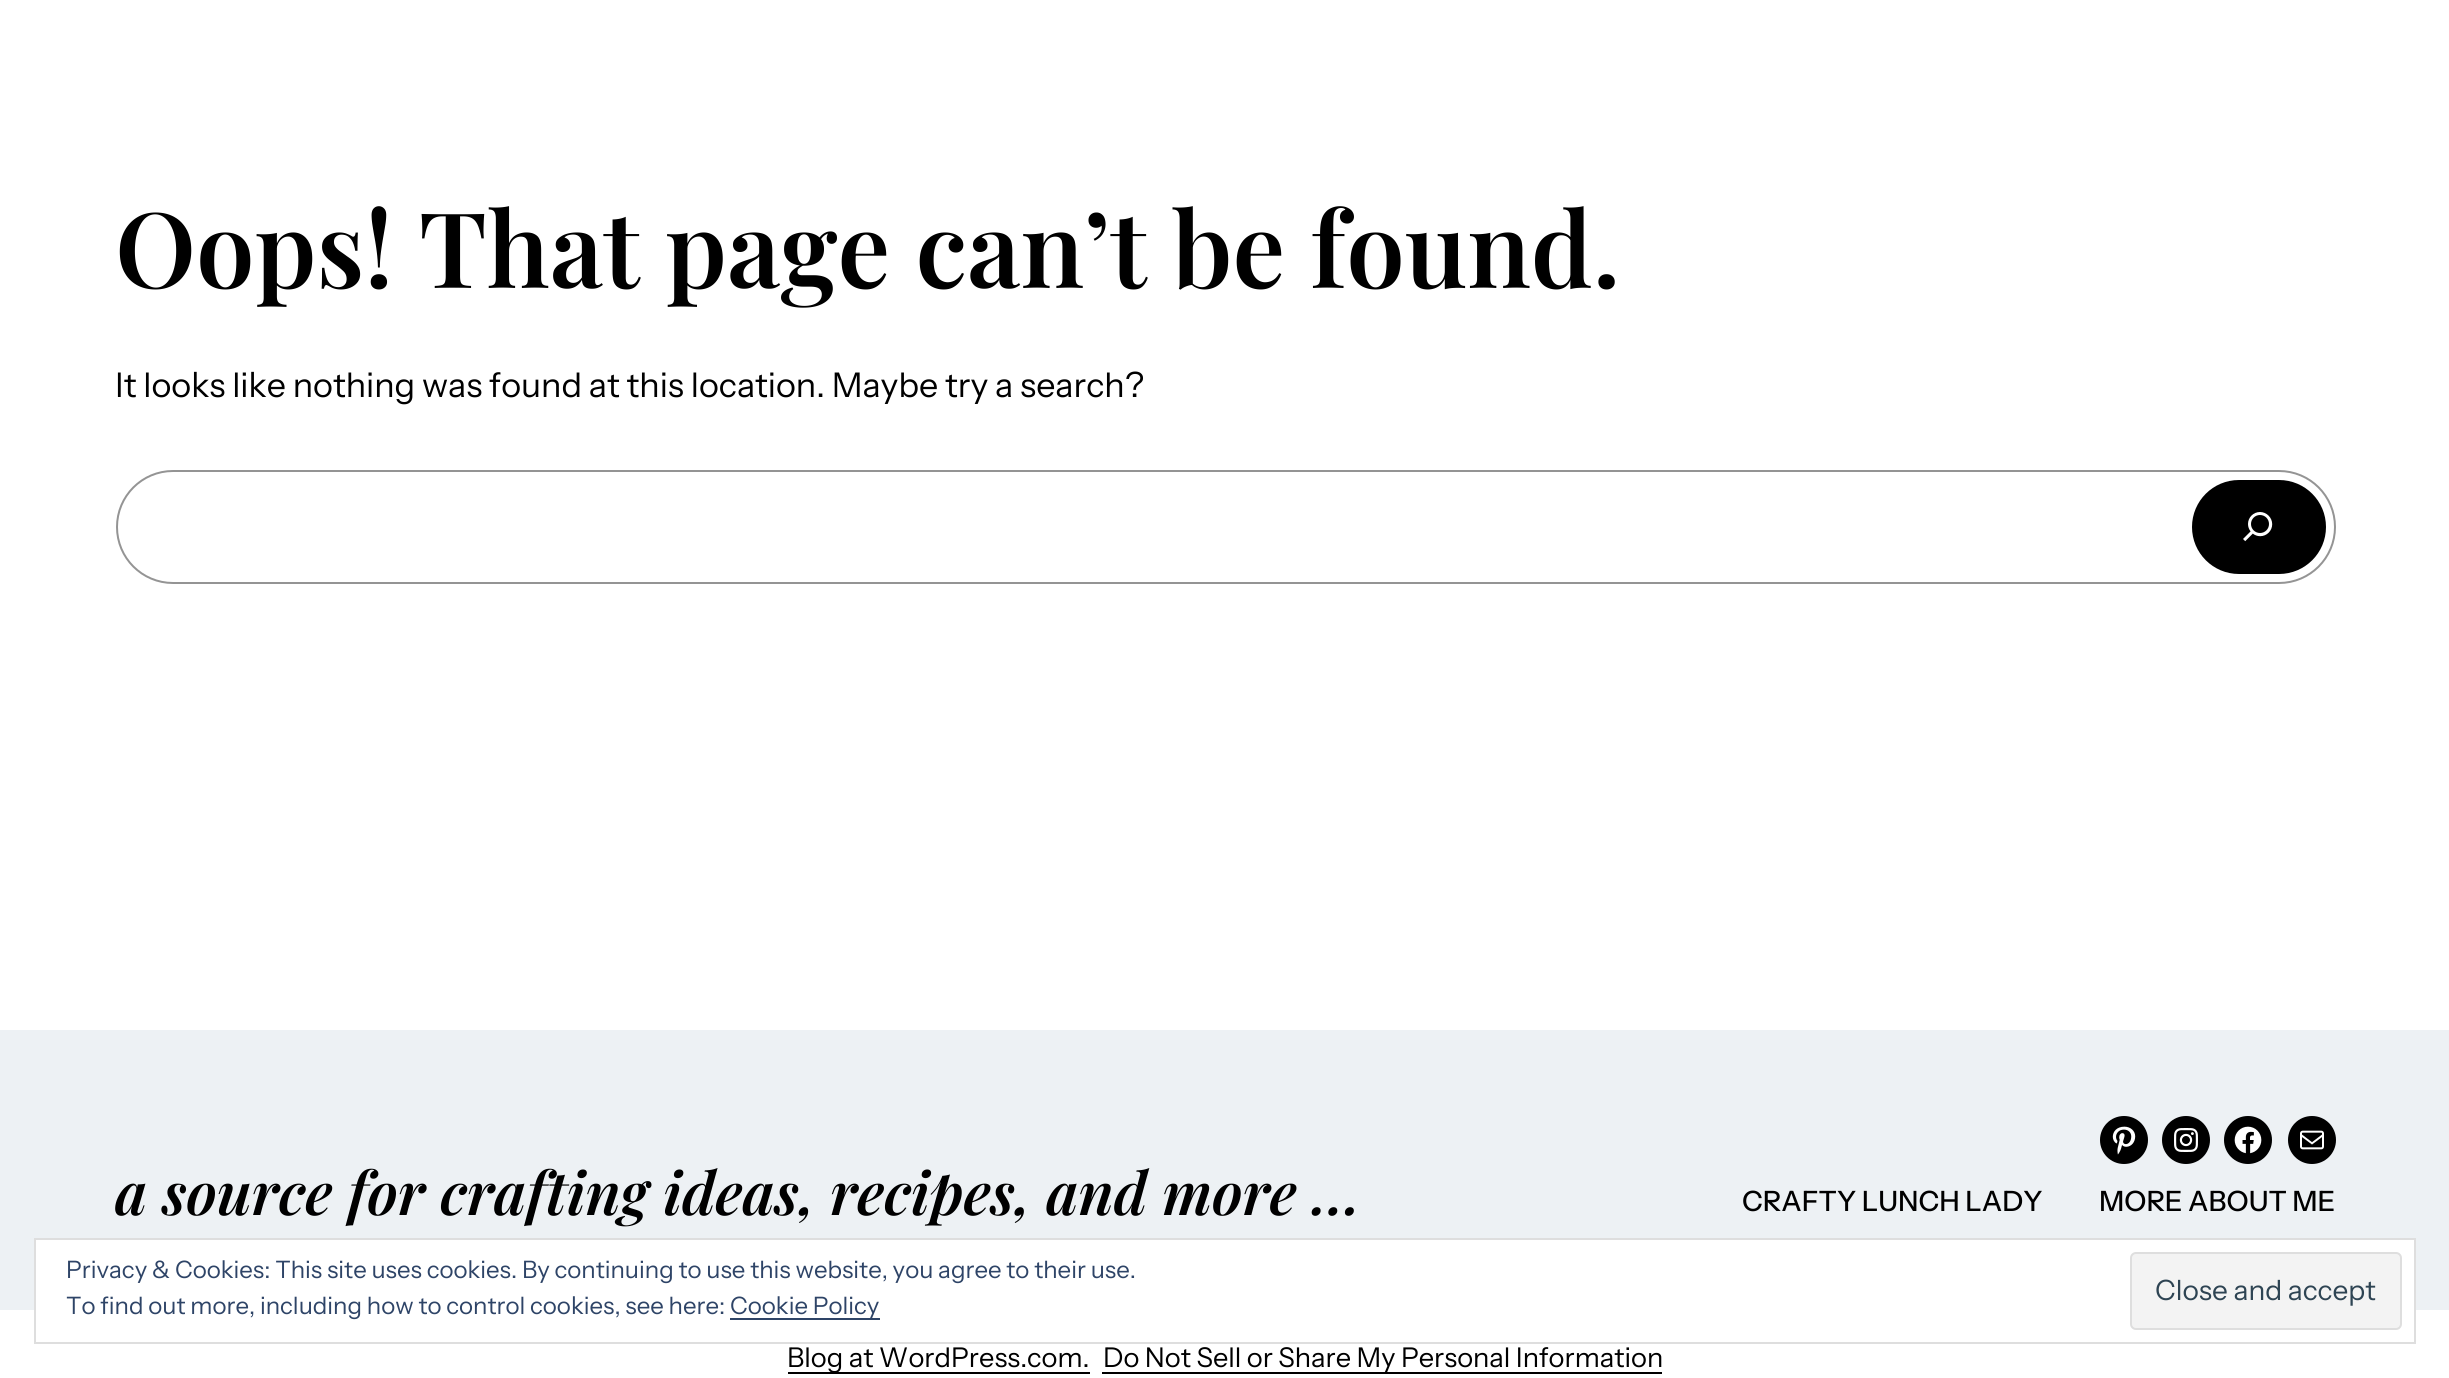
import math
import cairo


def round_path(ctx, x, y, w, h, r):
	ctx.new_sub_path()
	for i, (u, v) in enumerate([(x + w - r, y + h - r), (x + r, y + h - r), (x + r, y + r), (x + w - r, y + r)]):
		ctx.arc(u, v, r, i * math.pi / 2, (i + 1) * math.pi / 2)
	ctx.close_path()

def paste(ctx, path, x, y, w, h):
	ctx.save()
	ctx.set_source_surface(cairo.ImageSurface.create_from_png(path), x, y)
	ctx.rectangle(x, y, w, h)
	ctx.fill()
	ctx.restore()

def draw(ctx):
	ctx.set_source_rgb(1, 1, 1)
	ctx.paint()
	ctx.select_font_face('Playfair Display SemiBold')
	ctx.set_font_size(104.6)
	ctx.set_source_rgb(0, 0, 0)
	ctx.move_to(115, 288)
	ctx.show_text('Oops! That page can’t be found.')
	ctx.select_font_face('Instrument Sans')
	ctx.set_font_size(34)
	ctx.move_to(115, 397)
	ctx.show_text('It looks like nothing was found at this location. Maybe try a search?')
	round_path(ctx, 117, 471, 2218, 112, 56)
	ctx.set_source_rgb(0.58, 0.58, 0.58)
	ctx.stroke()
	ctx.set_source_rgb(0, 0, 0)
	round_path(ctx, 2192, 480, 134, 94, 47)
	ctx.fill()
	paste(ctx, 'media/1.png', 2243, 512, 30, 30)
	ctx.set_source_rgb(0.929, 0.945, 0.957)
	ctx.rectangle(0, 1030, 2449, 280)
	ctx.fill()
	ctx.select_font_face('Playfair Display SemiBold', cairo.FONT_SLANT_ITALIC)
	ctx.set_font_size(59.2)
	ctx.set_source_rgb(0, 0, 0)
	ctx.move_to(115, 1215)
	ctx.show_text('a source for crafting ideas, recipes, and more …')
	ctx.new_path()
	ctx.arc(2124, 1140, 24, 0, 2 * math.pi)
	ctx.fill()
	paste(ctx, 'media/2.png', 2112, 1126, 24, 29)
	ctx.arc(2186, 1140, 24, 0, 2 * math.pi)
	ctx.fill()
	paste(ctx, 'media/3.png', 2174, 1128, 24, 24)
	ctx.arc(2248, 1140, 24, 0, 2 * math.pi)
	ctx.fill()
	paste(ctx, 'media/4.png', 2234, 1126, 28, 28)
	ctx.arc(2312, 1140, 24, 0, 2 * math.pi)
	ctx.fill()
	paste(ctx, 'media/5.png', 2300, 1130, 24, 20)
	ctx.select_font_face('Instrument Sans Medium')
	ctx.set_font_size(28)
	ctx.move_to(1742, 1211)
	ctx.show_text('CRAFTY LUNCH LADY')
	ctx.move_to(2099, 1211)
	ctx.show_text('MORE ABOUT ME')
	ctx.rectangle(788, 1372, 302, 2)
	ctx.fill()
	ctx.select_font_face('Instrument Sans')
	ctx.set_font_size(27.2)
	ctx.move_to(787, 1367)
	ctx.show_text('Blog at WordPress.com.')
	ctx.rectangle(1102, 1372, 560, 2)
	ctx.fill()
	ctx.move_to(1103, 1367)
	ctx.show_text('Do Not Sell or Share My Personal Information')
	ctx.set_source_rgb(1, 1, 1)
	ctx.rectangle(36, 1240, 2378, 70)
	ctx.fill()
	ctx.rectangle(35, 1239, 2380, 104)
	ctx.set_source_rgb(0.871, 0.871, 0.871)
	ctx.stroke()
	ctx.set_font_size(24)
	ctx.set_source_rgb(0.18, 0.267, 0.404)
	ctx.move_to(66, 1278)
	ctx.show_text('Privacy & Cookies: This site uses cookies. By continuing to use this website, you agree to their use.')
	ctx.move_to(66, 1314)
	ctx.show_text('To find out more, including how to control cookies, see here:')
	ctx.rectangle(730, 1318, 150, 2)
	ctx.fill()
	ctx.move_to(730, 1314)
	ctx.show_text('Cookie Policy')
	ctx.set_source_rgb(0.953, 0.953, 0.953)
	round_path(ctx, 2131, 1253, 270, 76, 5)
	ctx.fill_preserve()
	ctx.set_source_rgb(0.871, 0.871, 0.871)
	ctx.stroke()
	ctx.set_font_size(28)
	ctx.set_source_rgb(0.18, 0.267, 0.325)
	ctx.move_to(2155, 1300)
	ctx.show_text('Close and accept')


surface = cairo.ImageSurface(cairo.FORMAT_RGB24, 2449, 1378)
ctx = cairo.Context(surface)
options = cairo.FontOptions()
options.set_hint_metrics(cairo.HINT_METRICS_OFF)
options.set_hint_style(cairo.HINT_STYLE_NONE)
ctx.set_font_options(options)
ctx.set_miter_limit(4)
draw(ctx)
surface.write_to_png('image.png')
